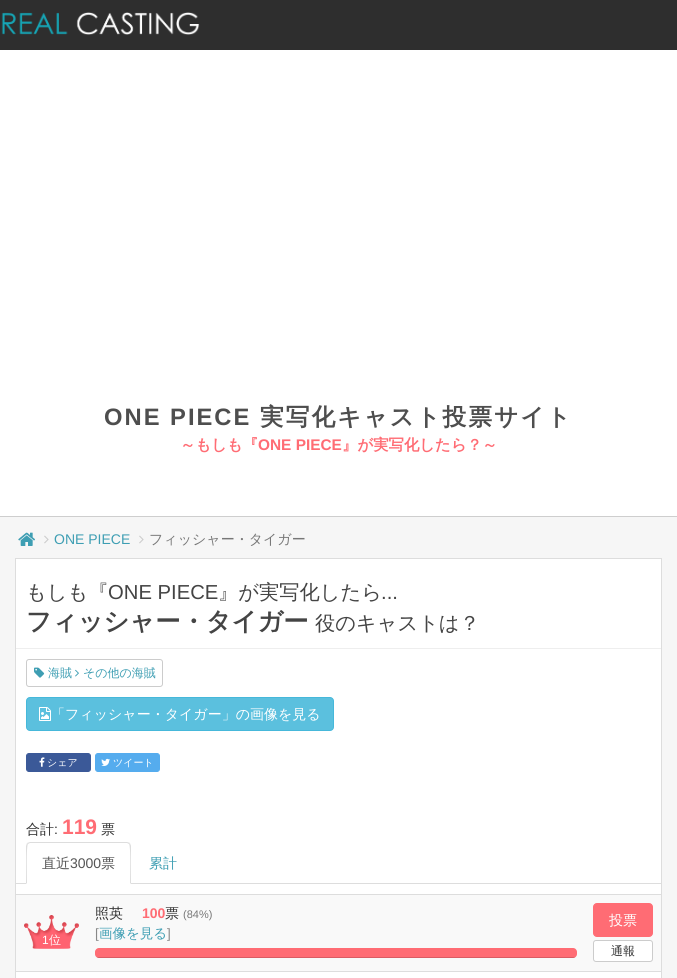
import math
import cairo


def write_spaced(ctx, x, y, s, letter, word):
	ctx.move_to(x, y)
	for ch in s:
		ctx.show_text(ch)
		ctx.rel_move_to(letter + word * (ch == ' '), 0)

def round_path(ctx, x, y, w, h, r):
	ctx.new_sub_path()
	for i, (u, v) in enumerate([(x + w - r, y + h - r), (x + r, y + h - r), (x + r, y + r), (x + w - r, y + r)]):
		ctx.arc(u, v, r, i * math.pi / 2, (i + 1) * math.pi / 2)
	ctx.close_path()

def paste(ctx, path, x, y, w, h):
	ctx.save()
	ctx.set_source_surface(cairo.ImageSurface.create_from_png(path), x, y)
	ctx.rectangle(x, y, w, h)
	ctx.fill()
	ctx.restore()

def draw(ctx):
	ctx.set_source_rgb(0.961, 0.961, 0.961)
	ctx.paint()
	ctx.set_source_rgb(0.18, 0.18, 0.18)
	ctx.rectangle(0, 0, 677, 50)
	ctx.fill()
	paste(ctx, 'media/1.png', 1, 12, 199, 23)
	ctx.set_source_rgb(1, 1, 1)
	ctx.rectangle(0, 50, 677, 466)
	ctx.fill()
	ctx.set_source_rgb(0.808, 0.808, 0.808)
	ctx.rectangle(0, 516, 677, 1)
	ctx.fill()
	ctx.select_font_face('Liberation Sans', cairo.FONT_SLANT_NORMAL, cairo.FONT_WEIGHT_BOLD)
	ctx.set_font_size(23.75)
	ctx.set_source_rgb(0.306, 0.306, 0.306)
	write_spaced(ctx, 104, 425, 'ONE PIECE', 2, 0)
	ctx.select_font_face('WenQuanYi Zen Hei', cairo.FONT_SLANT_NORMAL, cairo.FONT_WEIGHT_BOLD)
	write_spaced(ctx, 260, 425, '実写化キャスト投票サイト', 2, 0)
	ctx.set_font_size(15.4)
	ctx.set_source_rgb(1, 0.424, 0.455)
	ctx.move_to(180, 450)
	ctx.show_text('～もしも『')
	ctx.select_font_face('Liberation Sans', cairo.FONT_SLANT_NORMAL, cairo.FONT_WEIGHT_BOLD)
	ctx.move_to(258, 450)
	ctx.show_text('ONE PIECE')
	ctx.select_font_face('WenQuanYi Zen Hei', cairo.FONT_SLANT_NORMAL, cairo.FONT_WEIGHT_BOLD)
	ctx.move_to(342, 450)
	ctx.show_text('』が実写化したら？～')
	paste(ctx, 'media/2.png', 18, 532, 17, 14)
	paste(ctx, 'media/3.png', 44, 535, 5, 9)
	ctx.select_font_face('Liberation Sans')
	ctx.set_font_size(14)
	ctx.set_source_rgb(0.243, 0.62, 0.702)
	ctx.move_to(54, 544)
	ctx.show_text('ONE PIECE')
	paste(ctx, 'media/3.png', 139, 535, 5, 9)
	ctx.select_font_face('WenQuanYi Zen Hei Medium')
	ctx.set_source_rgb(0.467, 0.467, 0.467)
	ctx.move_to(149, 544)
	ctx.show_text('フィッシャー・タイガー')
	ctx.set_source_rgb(1, 1, 1)
	ctx.rectangle(15.5, 558.5, 646, 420)
	ctx.fill_preserve()
	ctx.set_source_rgb(0.867, 0.867, 0.867)
	ctx.set_line_width(1)
	ctx.stroke()
	ctx.set_source_rgb(0.933, 0.933, 0.933)
	ctx.rectangle(16, 648, 645, 1)
	ctx.fill()
	ctx.set_font_size(20.25)
	ctx.set_source_rgb(0.267, 0.267, 0.267)
	ctx.move_to(26, 599)
	ctx.show_text('もしも『')
	ctx.select_font_face('Liberation Sans')
	ctx.move_to(108, 599)
	ctx.show_text('ONE PIECE')
	ctx.select_font_face('WenQuanYi Zen Hei Medium')
	ctx.move_to(218, 599)
	ctx.show_text('』が実写化したら')
	ctx.select_font_face('Liberation Sans')
	ctx.move_to(381, 599)
	ctx.show_text('...')
	ctx.select_font_face('WenQuanYi Zen Hei', cairo.FONT_SLANT_NORMAL, cairo.FONT_WEIGHT_BOLD)
	ctx.set_font_size(25.25)
	ctx.move_to(26, 630)
	ctx.show_text('フィッシャー・タイガー')
	ctx.select_font_face('WenQuanYi Zen Hei Medium')
	ctx.set_font_size(20.25)
	ctx.move_to(315, 630)
	ctx.show_text('役のキャストは？')
	round_path(ctx, 26.5, 659.5, 136, 27, 2.5)
	ctx.set_source_rgb(0.8, 0.8, 0.8)
	ctx.stroke()
	paste(ctx, 'media/4.png', 34, 667, 11, 11)
	ctx.set_font_size(12)
	ctx.set_source_rgb(0.243, 0.62, 0.702)
	ctx.move_to(48, 677)
	ctx.show_text('海賊')
	paste(ctx, 'media/5.png', 75, 669, 4, 8)
	ctx.move_to(83, 677)
	ctx.show_text('その他の海賊')
	ctx.set_source_rgb(0.357, 0.753, 0.871)
	round_path(ctx, 26.5, 697.5, 307, 33, 3.5)
	ctx.fill_preserve()
	ctx.set_source_rgb(0.275, 0.722, 0.855)
	ctx.stroke()
	paste(ctx, 'media/6.png', 39, 707, 12, 14)
	ctx.set_font_size(14)
	ctx.set_source_rgb(1, 1, 1)
	ctx.move_to(51, 719)
	ctx.show_text('「フィッシャー・タイガー」の画像を見る')
	ctx.set_source_rgb(0.231, 0.349, 0.596)
	round_path(ctx, 26.5, 753.5, 64, 18, 2.5)
	ctx.fill_preserve()
	ctx.stroke()
	paste(ctx, 'media/7.png', 39, 757, 6, 10)
	ctx.set_font_size(10)
	ctx.set_source_rgb(1, 1, 1)
	ctx.move_to(47, 766)
	ctx.show_text('シェア')
	ctx.set_source_rgb(0.333, 0.675, 0.933)
	round_path(ctx, 95.5, 753.5, 64, 18, 2.5)
	ctx.fill_preserve()
	ctx.stroke()
	paste(ctx, 'media/8.png', 101, 758, 9, 8)
	ctx.set_source_rgb(1, 1, 1)
	ctx.move_to(113, 766)
	ctx.show_text('ツイート')
	ctx.set_font_size(14)
	ctx.set_source_rgb(0.2, 0.2, 0.2)
	ctx.move_to(26, 834)
	ctx.show_text('合計')
	ctx.select_font_face('Liberation Sans')
	ctx.move_to(54, 834)
	ctx.show_text(':')
	ctx.select_font_face('Liberation Sans', cairo.FONT_SLANT_NORMAL, cairo.FONT_WEIGHT_BOLD)
	ctx.set_font_size(21)
	ctx.set_source_rgb(1, 0.424, 0.455)
	ctx.move_to(62, 834)
	ctx.show_text('119')
	ctx.select_font_face('WenQuanYi Zen Hei Medium')
	ctx.set_font_size(14)
	ctx.set_source_rgb(0.2, 0.2, 0.2)
	ctx.move_to(101, 834)
	ctx.show_text('票')
	ctx.set_source_rgb(0.867, 0.867, 0.867)
	ctx.rectangle(16, 883, 645, 1)
	ctx.fill()
	ctx.set_source_rgb(1, 1, 1)
	ctx.new_path()
	ctx.move_to(30, 842)
	ctx.line_to(127, 842)
	ctx.curve_to(129, 842, 131, 844, 131, 846)
	ctx.line_to(131, 884)
	ctx.line_to(26, 884)
	ctx.line_to(26, 846)
	ctx.curve_to(26, 844, 28, 842, 30, 842)
	ctx.close_path()
	ctx.fill()
	ctx.set_source_rgb(0.867, 0.867, 0.867)
	ctx.new_path()
	ctx.move_to(30, 842)
	ctx.line_to(27, 843)
	ctx.line_to(28, 844)
	ctx.line_to(30, 843)
	ctx.line_to(127, 843)
	ctx.line_to(129, 844)
	ctx.line_to(130, 843)
	ctx.line_to(127, 842)
	ctx.close_path()
	ctx.fill()
	ctx.new_path()
	ctx.move_to(131, 884)
	ctx.line_to(131, 846)
	ctx.curve_to(131, 845, 130, 844, 130, 843)
	ctx.line_to(129, 844)
	ctx.curve_to(131, 846, 130, 878, 130, 883)
	ctx.close_path()
	ctx.fill()
	ctx.new_path()
	ctx.move_to(26, 884)
	ctx.line_to(27, 883)
	ctx.curve_to(27, 878, 26, 846, 28, 844)
	ctx.line_to(27, 843)
	ctx.line_to(26, 846)
	ctx.close_path()
	ctx.fill()
	ctx.set_source_rgb(0.333, 0.333, 0.333)
	ctx.move_to(42, 868)
	ctx.show_text('直近')
	ctx.select_font_face('Liberation Sans')
	ctx.move_to(70, 868)
	ctx.show_text('3000')
	ctx.select_font_face('WenQuanYi Zen Hei Medium')
	ctx.move_to(101, 868)
	ctx.show_text('票')
	ctx.set_source_rgb(0.243, 0.62, 0.702)
	ctx.move_to(149, 868)
	ctx.show_text('累計')
	ctx.set_source_rgb(0.976, 0.976, 0.976)
	ctx.rectangle(16, 895, 645, 76)
	ctx.fill()
	paste(ctx, 'media/9.png', 24, 915, 55, 34)
	ctx.select_font_face('Liberation Sans')
	ctx.set_font_size(12)
	ctx.set_source_rgb(1, 1, 1)
	ctx.move_to(42, 944)
	ctx.show_text('1')
	ctx.select_font_face('WenQuanYi Zen Hei Medium')
	ctx.move_to(49, 944)
	ctx.show_text('位')
	ctx.set_font_size(14)
	ctx.set_source_rgb(0.2, 0.2, 0.2)
	ctx.move_to(95, 918)
	ctx.show_text('照英')
	ctx.select_font_face('Liberation Sans', cairo.FONT_SLANT_NORMAL, cairo.FONT_WEIGHT_BOLD)
	ctx.set_source_rgb(1, 0.424, 0.455)
	ctx.move_to(142, 918)
	ctx.show_text('100')
	ctx.select_font_face('WenQuanYi Zen Hei Medium')
	ctx.set_source_rgb(0.2, 0.2, 0.2)
	ctx.move_to(165, 918)
	ctx.show_text('票')
	ctx.select_font_face('Liberation Sans')
	ctx.set_font_size(11)
	ctx.set_source_rgb(0.467, 0.467, 0.467)
	ctx.move_to(183, 918)
	ctx.show_text('(84%)')
	ctx.set_font_size(13.5)
	ctx.set_source_rgb(0.533, 0.533, 0.533)
	ctx.move_to(95, 938)
	ctx.show_text('[')
	ctx.select_font_face('WenQuanYi Zen Hei Medium')
	ctx.set_source_rgb(0.243, 0.62, 0.702)
	ctx.move_to(99, 938)
	ctx.show_text('画像を見る')
	ctx.select_font_face('Liberation Sans')
	ctx.set_source_rgb(0.533, 0.533, 0.533)
	ctx.move_to(167, 938)
	ctx.show_text(']')
	ctx.set_source_rgb(1, 0.424, 0.455)
	round_path(ctx, 95, 948, 482, 10, 4)
	ctx.fill()
	ctx.save()
	round_path(ctx, 95, 948, 482, 10, 4)
	ctx.clip()
	ctx.set_source_rgba(0, 0, 0, 0.15)
	ctx.rectangle(95, 957, 482, 1)
	ctx.fill()
	ctx.restore()
	ctx.set_source_rgb(0.867, 0.867, 0.867)
	ctx.rectangle(16, 894, 646, 1)
	ctx.fill()
	ctx.set_source_rgb(1, 0.424, 0.455)
	round_path(ctx, 593.5, 903.5, 59, 33, 3.5)
	ctx.fill_preserve()
	ctx.stroke()
	ctx.select_font_face('WenQuanYi Zen Hei Medium')
	ctx.set_font_size(14)
	ctx.set_source_rgb(1, 1, 1)
	ctx.move_to(609, 925)
	ctx.show_text('投票')
	round_path(ctx, 593.5, 940.5, 59, 21, 2.5)
	ctx.fill_preserve()
	ctx.set_source_rgb(0.8, 0.8, 0.8)
	ctx.stroke()
	ctx.set_font_size(12)
	ctx.set_source_rgb(0.2, 0.2, 0.2)
	ctx.move_to(611, 955)
	ctx.show_text('通報')
	ctx.set_source_rgb(0.867, 0.867, 0.867)
	ctx.rectangle(16, 971, 646, 1)
	ctx.fill()


surface = cairo.ImageSurface(cairo.FORMAT_RGB24, 677, 978)
ctx = cairo.Context(surface)
options = cairo.FontOptions()
options.set_hint_metrics(cairo.HINT_METRICS_OFF)
options.set_hint_style(cairo.HINT_STYLE_NONE)
ctx.set_font_options(options)
ctx.set_miter_limit(4)
draw(ctx)
surface.write_to_png('image.png')
